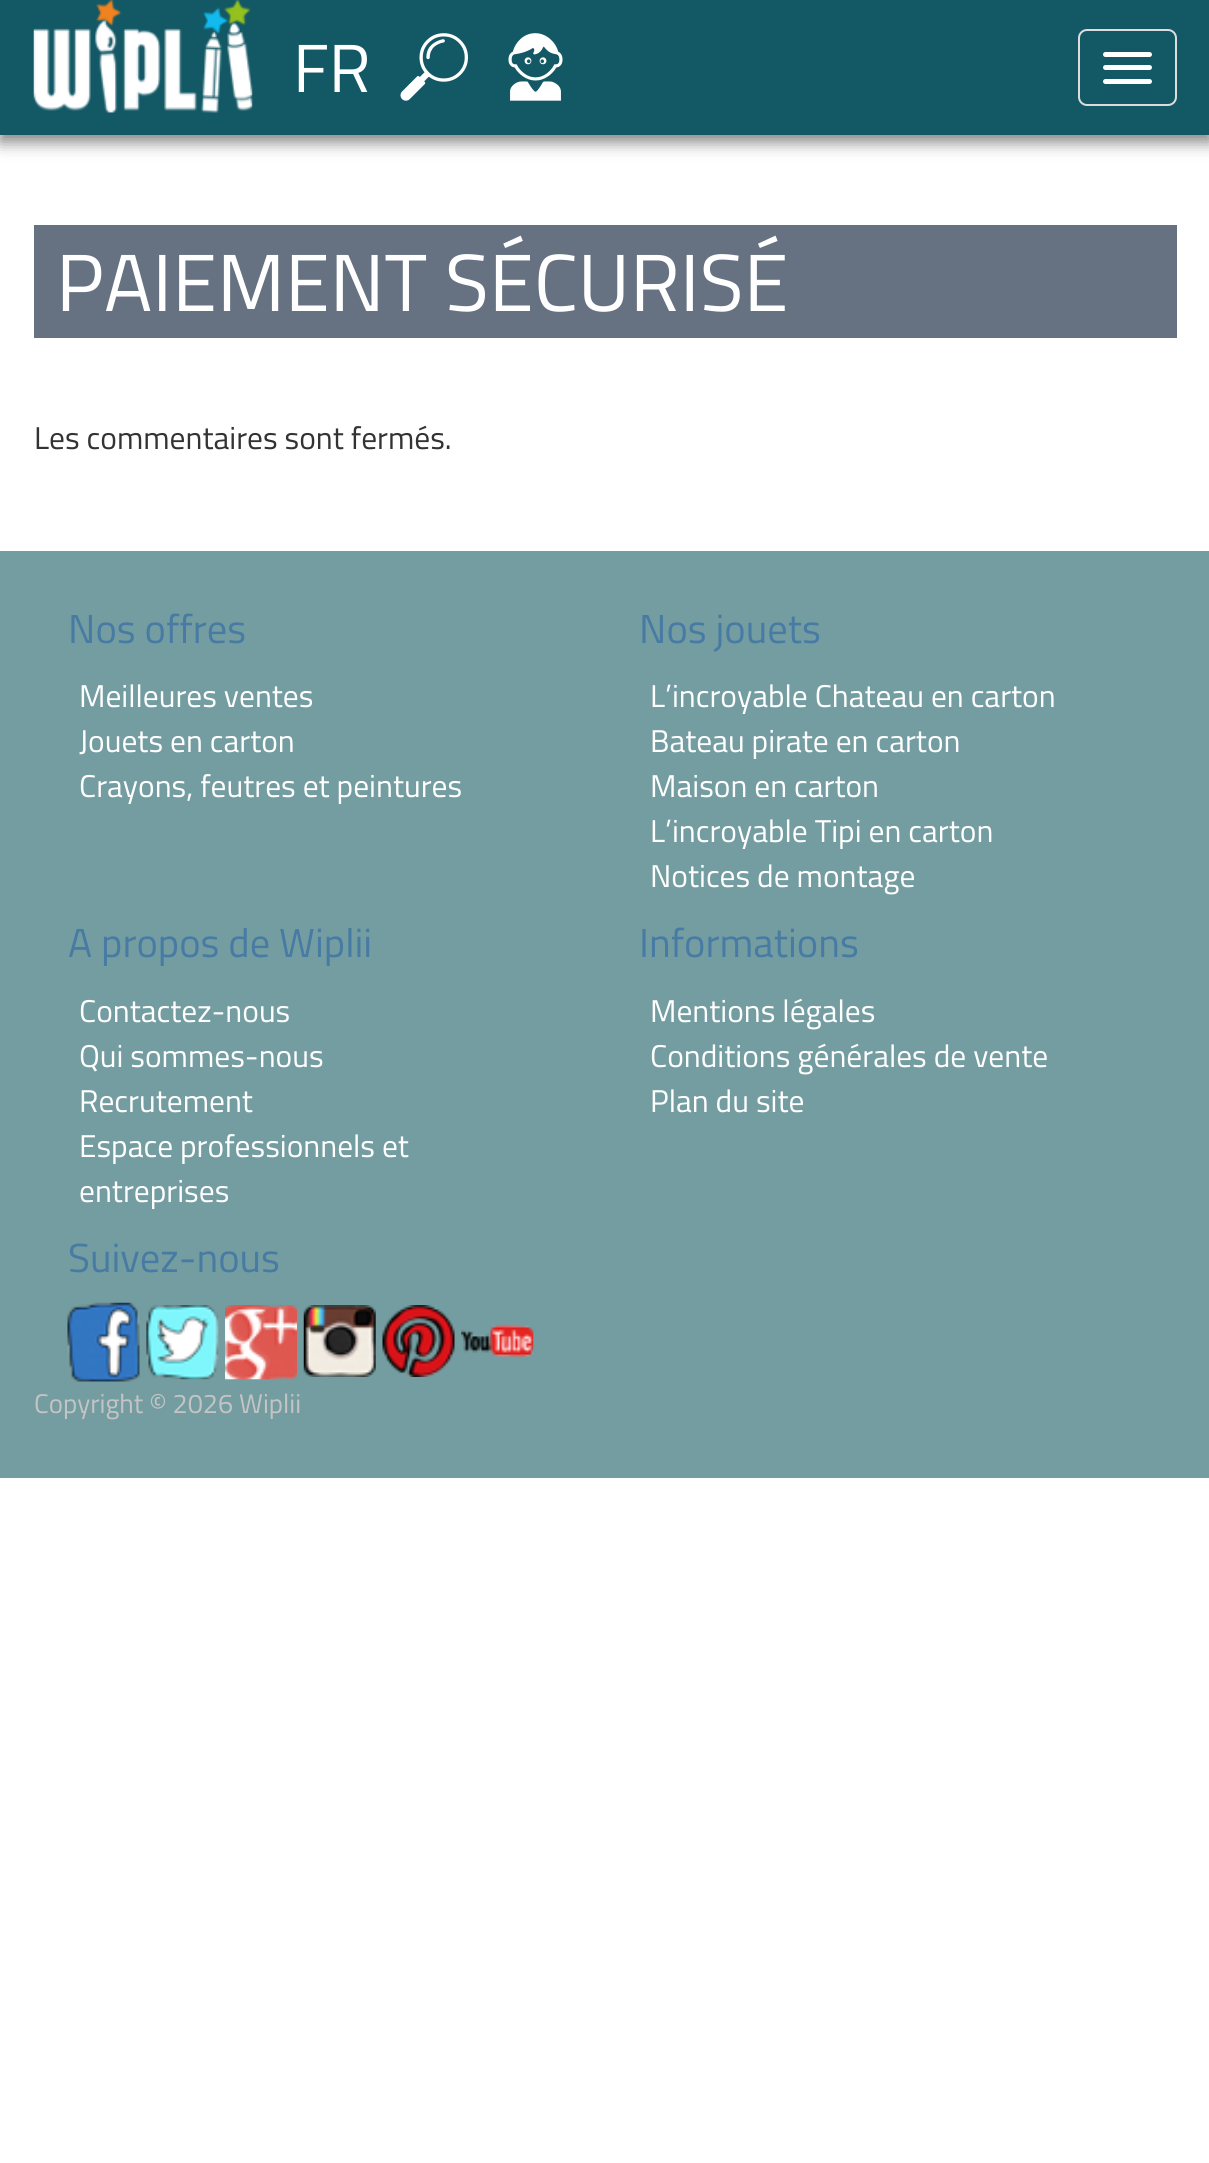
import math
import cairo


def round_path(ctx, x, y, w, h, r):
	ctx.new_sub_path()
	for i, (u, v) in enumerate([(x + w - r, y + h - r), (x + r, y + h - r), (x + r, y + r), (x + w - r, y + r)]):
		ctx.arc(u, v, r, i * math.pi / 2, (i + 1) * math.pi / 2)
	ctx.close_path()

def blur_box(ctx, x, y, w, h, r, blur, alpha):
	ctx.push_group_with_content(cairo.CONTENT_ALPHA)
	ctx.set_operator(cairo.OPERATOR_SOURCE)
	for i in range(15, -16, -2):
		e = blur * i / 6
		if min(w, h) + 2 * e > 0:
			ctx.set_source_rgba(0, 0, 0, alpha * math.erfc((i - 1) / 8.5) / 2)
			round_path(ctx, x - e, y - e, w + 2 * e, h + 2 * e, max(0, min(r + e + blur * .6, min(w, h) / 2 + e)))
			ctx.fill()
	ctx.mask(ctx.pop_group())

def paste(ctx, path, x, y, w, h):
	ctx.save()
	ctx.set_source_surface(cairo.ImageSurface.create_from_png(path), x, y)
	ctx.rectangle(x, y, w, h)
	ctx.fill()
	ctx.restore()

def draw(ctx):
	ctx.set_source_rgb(1, 1, 1)
	ctx.paint()
	ctx.set_source_rgb(0, 0, 0)
	blur_box(ctx, 0, 7, 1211, 135, 0, 8, 0.5)
	ctx.set_source_rgb(0.078, 0.345, 0.396)
	ctx.rectangle(0, 0, 1209, 135)
	ctx.fill()
	paste(ctx, 'media/1.png', 33, 0, 220, 113)
	round_path(ctx, 1079, 30, 97, 75, 8)
	ctx.set_source_rgb(0.867, 0.867, 0.867)
	ctx.stroke()
	ctx.set_source_rgb(1, 1, 1)
	round_path(ctx, 1103, 52, 49, 5, 2.5)
	ctx.fill()
	round_path(ctx, 1103, 65, 49, 5, 2.5)
	ctx.fill()
	round_path(ctx, 1103, 79, 49, 5, 2.5)
	ctx.fill()
	ctx.select_font_face('Titillium Web')
	ctx.set_font_size(68)
	ctx.move_to(293, 92)
	ctx.show_text('FR')
	paste(ctx, 'media/2.png', 400, 33, 68, 68)
	paste(ctx, 'media/3.png', 508, 33, 55, 68)
	ctx.set_source_rgb(0.4, 0.447, 0.51)
	ctx.rectangle(34, 225, 1143, 113)
	ctx.fill()
	ctx.set_font_size(81)
	ctx.set_source_rgb(1, 1, 1)
	ctx.move_to(56, 311)
	ctx.show_text('PAIEMENT SÉCURISÉ')
	ctx.set_font_size(31.5)
	ctx.set_source_rgb(0.2, 0.2, 0.2)
	ctx.move_to(34, 449)
	ctx.show_text('Les commentaires sont fermés.')
	ctx.set_source_rgb(0.455, 0.616, 0.631)
	ctx.rectangle(0, 551, 1209, 927)
	ctx.fill()
	ctx.set_font_size(40.5)
	ctx.set_source_rgb(0.278, 0.482, 0.643)
	ctx.move_to(68, 643)
	ctx.show_text('Nos offres')
	ctx.set_font_size(31.5)
	ctx.set_source_rgb(1, 1, 1)
	for x, y, s in [
		(79, 707, 'Meilleures ventes'),
		(79, 752, 'Jouets en carton'),
		(79, 797, 'Crayons, feutres et peintures'),
	]:
		ctx.move_to(x, y)
		ctx.show_text(s)
	ctx.set_font_size(40.5)
	ctx.set_source_rgb(0.278, 0.482, 0.643)
	ctx.move_to(639, 643)
	ctx.show_text('Nos jouets')
	ctx.set_font_size(31.5)
	ctx.set_source_rgb(1, 1, 1)
	for x, y, s in [
		(650, 707, 'L’incroyable Chateau en carton'),
		(650, 752, 'Bateau pirate en carton'),
		(650, 797, 'Maison en carton'),
		(650, 842, 'L’incroyable Tipi en carton'),
		(650, 887, 'Notices de montage'),
	]:
		ctx.move_to(x, y)
		ctx.show_text(s)
	ctx.set_font_size(40.5)
	ctx.set_source_rgb(0.278, 0.482, 0.643)
	ctx.move_to(68, 957)
	ctx.show_text('A propos de Wiplii')
	ctx.set_font_size(31.5)
	ctx.set_source_rgb(1, 1, 1)
	for x, y, s in [
		(79, 1022, 'Contactez-nous'),
		(79, 1067, 'Qui sommes-nous'),
		(79, 1112, 'Recrutement'),
		(79, 1157, 'Espace professionnels et'),
		(79, 1202, 'entreprises'),
	]:
		ctx.move_to(x, y)
		ctx.show_text(s)
	ctx.set_font_size(40.5)
	ctx.set_source_rgb(0.278, 0.482, 0.643)
	ctx.move_to(639, 957)
	ctx.show_text('Informations')
	ctx.set_font_size(31.5)
	ctx.set_source_rgb(1, 1, 1)
	for x, y, s in [
		(650, 1022, 'Mentions légales'),
		(650, 1067, 'Conditions générales de vente'),
		(650, 1112, 'Plan du site'),
	]:
		ctx.move_to(x, y)
		ctx.show_text(s)
	ctx.set_font_size(40.5)
	ctx.set_source_rgb(0.278, 0.482, 0.643)
	ctx.move_to(68, 1272)
	ctx.show_text('Suivez-nous')
	paste(ctx, 'media/4.png', 67, 1302, 73, 80)
	paste(ctx, 'media/5.png', 146, 1305, 73, 75)
	paste(ctx, 'media/6.png', 225, 1305, 72, 75)
	paste(ctx, 'media/7.png', 303, 1305, 73, 72)
	paste(ctx, 'media/8.png', 382, 1305, 73, 72)
	paste(ctx, 'media/9.png', 461, 1324, 73, 34)
	ctx.set_font_size(27)
	ctx.set_source_rgb(0.769, 0.769, 0.769)
	ctx.move_to(34, 1413)
	ctx.show_text('Copyright © 2026 Wiplii')


surface = cairo.ImageSurface(cairo.FORMAT_RGB24, 1209, 2163)
ctx = cairo.Context(surface)
options = cairo.FontOptions()
options.set_hint_metrics(cairo.HINT_METRICS_OFF)
options.set_hint_style(cairo.HINT_STYLE_NONE)
ctx.set_font_options(options)
ctx.set_miter_limit(4)
draw(ctx)
surface.write_to_png('image.png')
